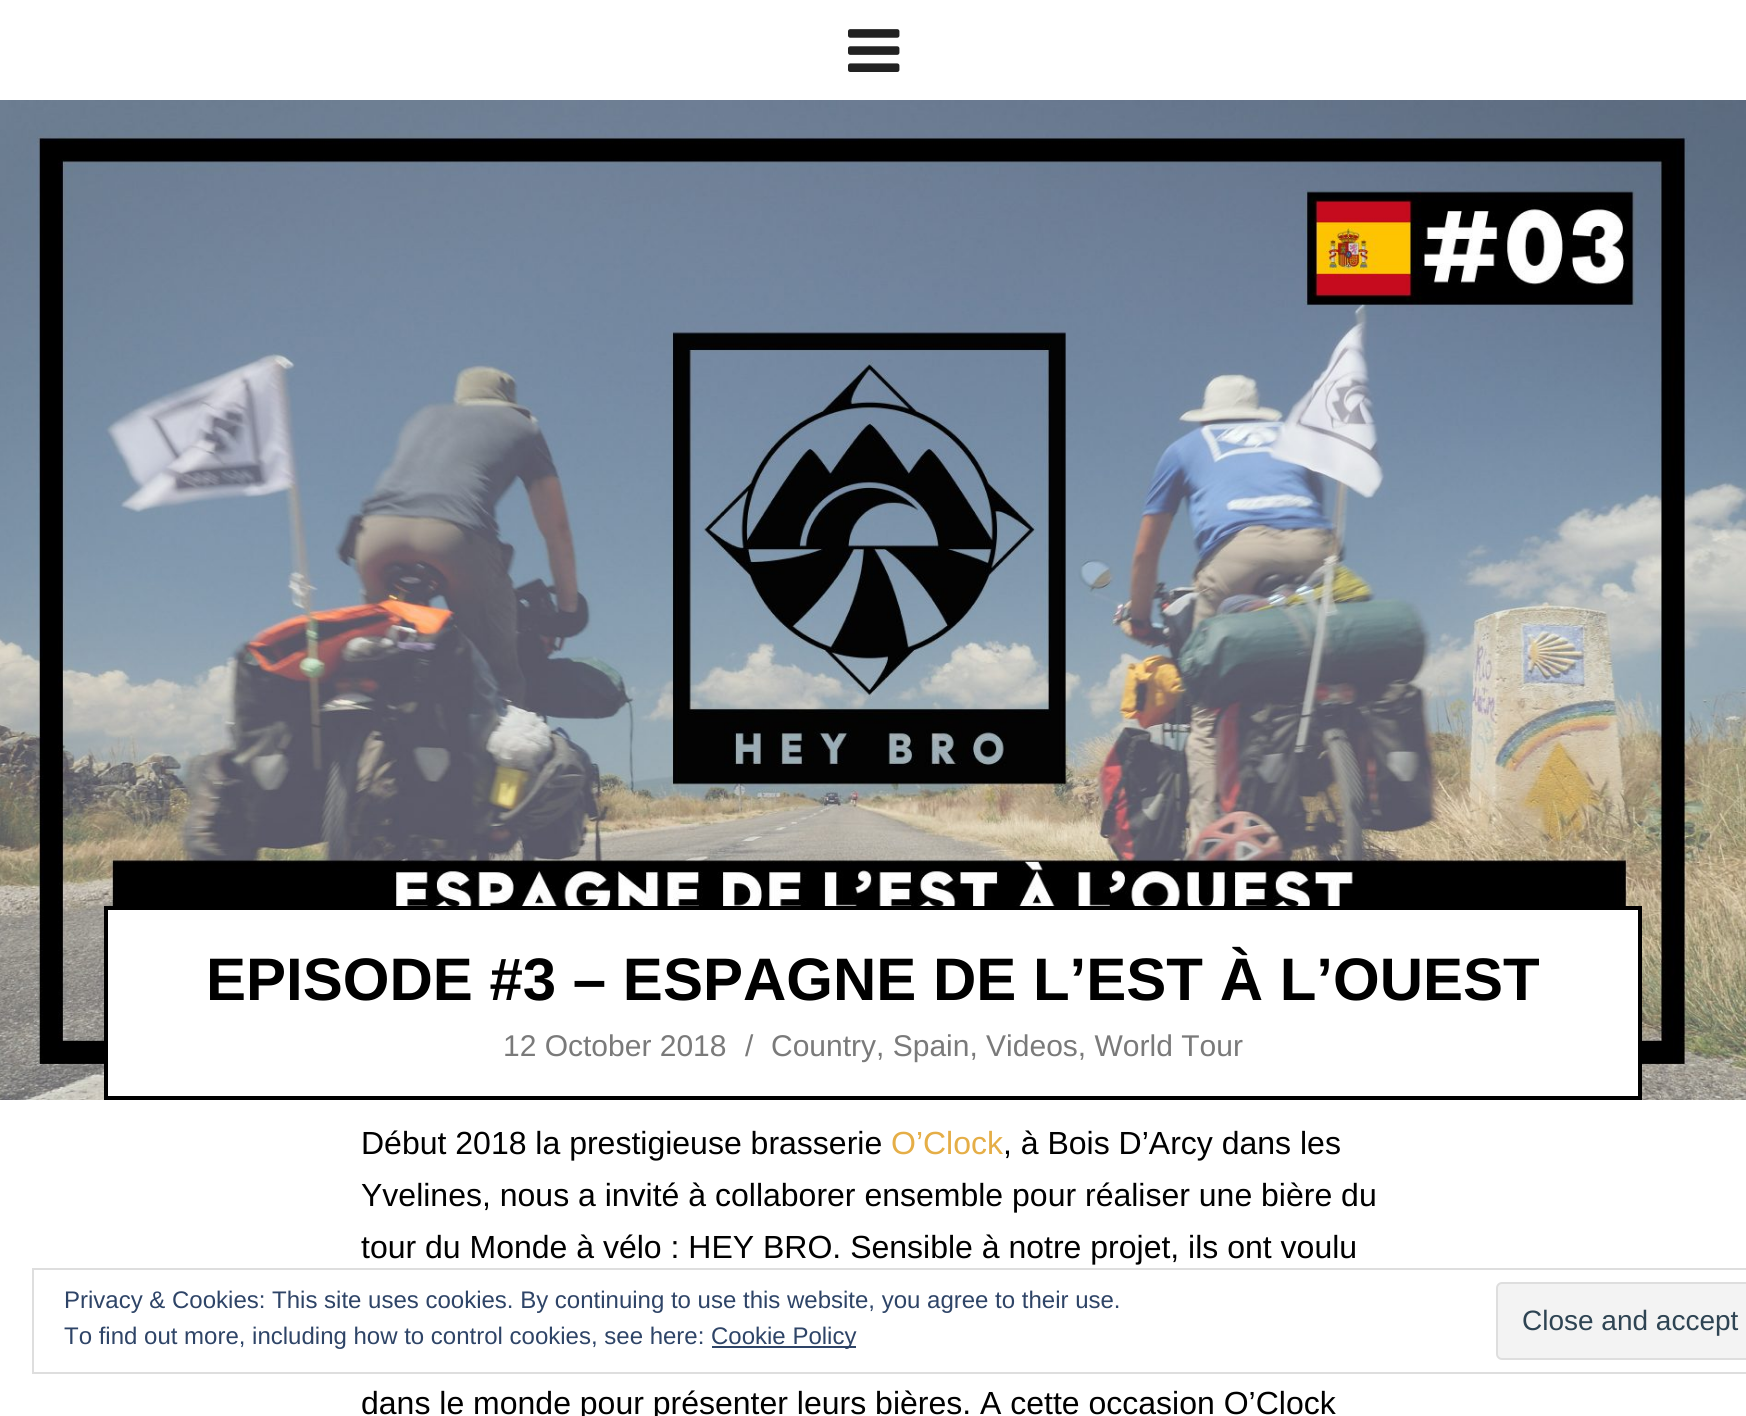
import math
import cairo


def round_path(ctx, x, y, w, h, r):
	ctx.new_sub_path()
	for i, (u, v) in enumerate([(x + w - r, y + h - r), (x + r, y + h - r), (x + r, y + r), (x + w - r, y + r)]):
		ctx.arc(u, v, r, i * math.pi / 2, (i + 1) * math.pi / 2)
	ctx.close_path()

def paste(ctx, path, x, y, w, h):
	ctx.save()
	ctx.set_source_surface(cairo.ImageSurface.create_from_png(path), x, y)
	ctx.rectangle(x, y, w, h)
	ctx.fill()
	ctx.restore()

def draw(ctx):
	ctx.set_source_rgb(1, 1, 1)
	ctx.paint()
	paste(ctx, 'media/1.png', 848, 29, 52, 43)
	paste(ctx, 'media/2.png', 0, 100, 1746, 1000)
	ctx.set_source_rgb(1, 1, 1)
	ctx.rectangle(106, 908, 1534, 190)
	ctx.fill_preserve()
	ctx.set_source_rgb(0, 0, 0)
	ctx.set_line_width(4)
	ctx.stroke()
	ctx.select_font_face('Liberation Sans', cairo.FONT_SLANT_NORMAL, cairo.FONT_WEIGHT_BOLD)
	ctx.set_font_size(60)
	ctx.move_to(206, 1000)
	ctx.show_text('EPISODE #3 – ESPAGNE DE L’EST À L’OUEST')
	ctx.select_font_face('Liberation Sans')
	ctx.set_font_size(30)
	ctx.set_source_rgb(0.478, 0.478, 0.478)
	for x, y, s in [
		(503, 1056, '12 October 2018'),
		(745, 1056, '/'),
		(771, 1056, 'Country, Spain, Videos, World Tour'),
	]:
		ctx.move_to(x, y)
		ctx.show_text(s)
	ctx.set_font_size(32)
	ctx.set_source_rgb(0, 0, 0)
	ctx.move_to(361, 1154)
	ctx.show_text('Début 2018 la prestigieuse brasserie')
	ctx.set_source_rgb(0.898, 0.682, 0.278)
	ctx.move_to(891, 1154)
	ctx.show_text('O’Clock')
	ctx.set_source_rgb(0, 0, 0)
	for x, y, s in [
		(1003, 1154, ', à Bois D’Arcy dans les'),
		(361, 1206, 'Yvelines, nous a invité à collaborer ensemble pour réaliser une bière du'),
		(361, 1258, 'tour du Monde à vélo : HEY BRO. Sensible à notre projet, ils ont voulu'),
		(361, 1414, 'dans le monde pour présenter leurs bières. A cette occasion O’Clock'),
	]:
		ctx.move_to(x, y)
		ctx.show_text(s)
	ctx.rectangle(33, 1269, 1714, 104)
	ctx.set_source_rgb(0.871, 0.871, 0.871)
	ctx.set_line_width(2)
	ctx.stroke()
	ctx.set_font_size(24)
	ctx.set_source_rgb(0.18, 0.267, 0.404)
	ctx.move_to(64, 1308)
	ctx.show_text('Privacy & Cookies: This site uses cookies. By continuing to use this website, you agree to their use.')
	ctx.move_to(64, 1344)
	ctx.show_text('To find out more, including how to control cookies, see here:')
	ctx.rectangle(712, 1346, 144, 2)
	ctx.fill()
	ctx.move_to(711, 1344)
	ctx.show_text('Cookie Policy')
	ctx.set_source_rgb(0.953, 0.953, 0.953)
	round_path(ctx, 1497, 1283, 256, 76, 5)
	ctx.fill_preserve()
	ctx.set_source_rgb(0.871, 0.871, 0.871)
	ctx.stroke()
	ctx.set_font_size(28)
	ctx.set_source_rgb(0.18, 0.267, 0.325)
	ctx.move_to(1522, 1330)
	ctx.show_text('Close and accept')


surface = cairo.ImageSurface(cairo.FORMAT_RGB24, 1746, 1416)
ctx = cairo.Context(surface)
options = cairo.FontOptions()
options.set_hint_metrics(cairo.HINT_METRICS_OFF)
options.set_hint_style(cairo.HINT_STYLE_NONE)
ctx.set_font_options(options)
ctx.set_miter_limit(4)
draw(ctx)
surface.write_to_png('image.png')
